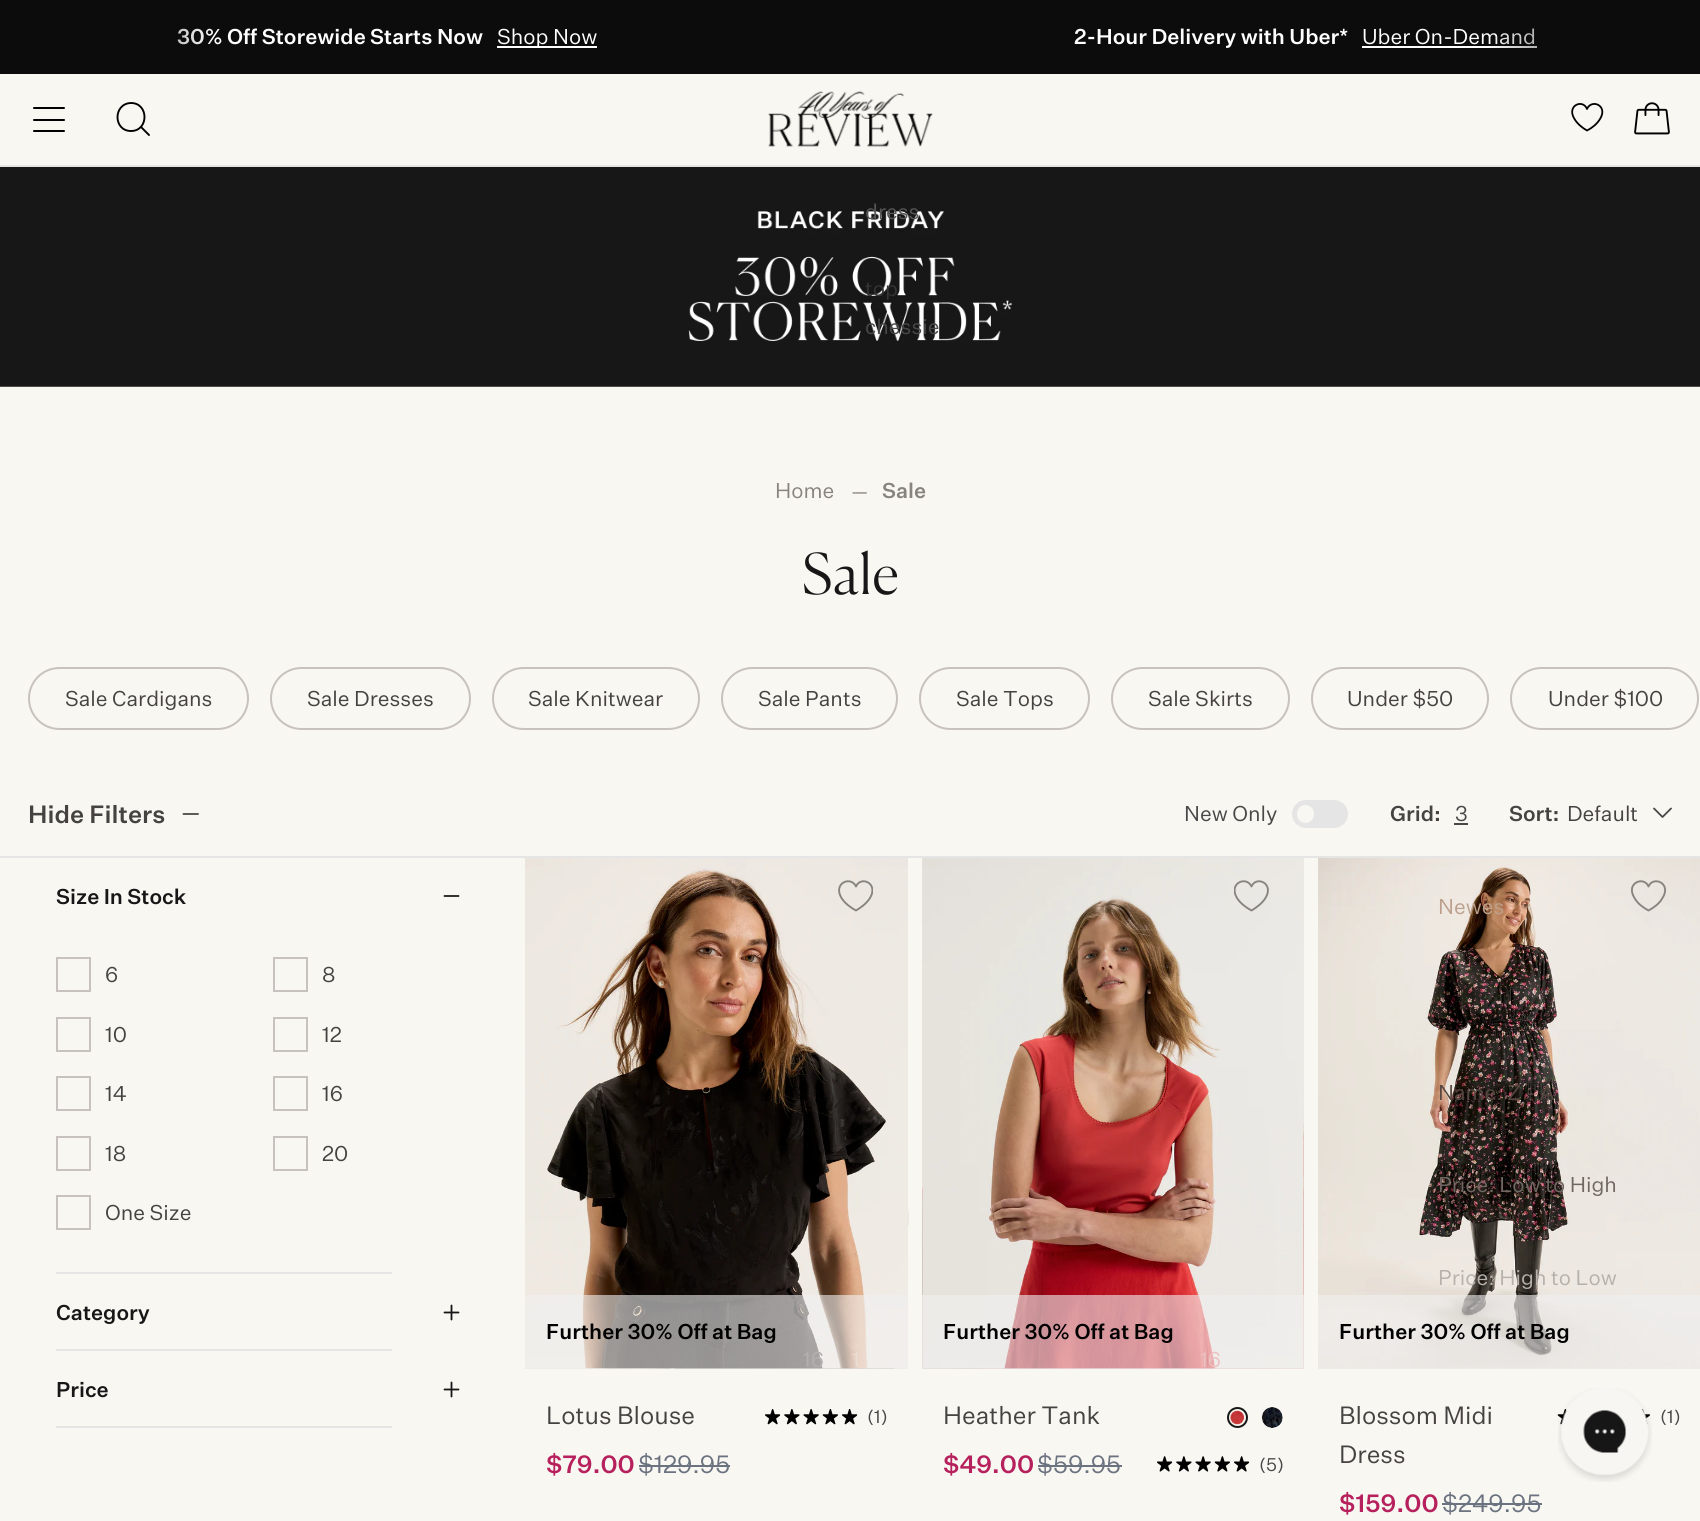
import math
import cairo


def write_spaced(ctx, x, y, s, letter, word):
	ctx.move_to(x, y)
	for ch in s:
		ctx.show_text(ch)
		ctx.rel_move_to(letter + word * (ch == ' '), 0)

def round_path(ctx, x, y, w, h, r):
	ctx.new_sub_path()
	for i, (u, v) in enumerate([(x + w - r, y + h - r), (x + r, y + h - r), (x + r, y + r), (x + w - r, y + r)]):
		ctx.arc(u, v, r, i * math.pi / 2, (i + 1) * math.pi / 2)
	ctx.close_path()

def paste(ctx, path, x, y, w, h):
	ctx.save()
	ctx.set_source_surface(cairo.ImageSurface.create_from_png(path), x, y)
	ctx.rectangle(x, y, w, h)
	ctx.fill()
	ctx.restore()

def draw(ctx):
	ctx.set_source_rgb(0.973, 0.965, 0.949)
	ctx.paint()
	ctx.set_source_rgb(0.051, 0.047, 0.051)
	ctx.rectangle(0, 0, 1700, 74)
	ctx.fill()
	ctx.select_font_face('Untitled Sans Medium')
	ctx.set_font_size(21)
	ctx.set_source_rgb(1, 1, 1)
	ctx.move_to(177, 44)
	ctx.show_text('30% Off Storewide Starts Now')
	ctx.rectangle(497, 46, 100, 2)
	ctx.fill()
	ctx.select_font_face('Untitled Sans')
	ctx.move_to(497, 44)
	ctx.show_text('Shop Now')
	ctx.select_font_face('Untitled Sans Medium')
	ctx.move_to(1074, 44)
	ctx.show_text('2-Hour Delivery with Uber*')
	ctx.select_font_face('Untitled Sans')
	ctx.move_to(1362, 44)
	ctx.show_text('Uber On-Demand')
	ctx.rectangle(1362, 46, 175, 2)
	ctx.fill()
	gradient = cairo.LinearGradient(56, 37, 215, 37)
	gradient.add_color_stop_rgba(0, 0.051, 0.047, 0.051, 1)
	gradient.add_color_stop_rgba(1, 0.051, 0.047, 0.051, 0)
	ctx.set_source(gradient)
	ctx.rectangle(177, 28, 35, 17)
	ctx.fill()
	gradient = cairo.LinearGradient(1645, 37, 1486, 37)
	gradient.add_color_stop_rgba(0, 0.051, 0.047, 0.051, 1)
	gradient.add_color_stop_rgba(1, 0.051, 0.047, 0.051, 0)
	ctx.set_source(gradient)
	ctx.rectangle(1489, 28, 48, 20)
	ctx.fill()
	ctx.set_source_rgb(0.898, 0.898, 0.898)
	ctx.rectangle(0, 165, 1700, 2)
	ctx.fill()
	ctx.set_source_rgb(0, 0, 0)
	round_path(ctx, 33, 107, 32, 2, 1)
	ctx.fill()
	round_path(ctx, 33, 119, 32, 2, 1)
	ctx.fill()
	round_path(ctx, 33, 130, 32, 2, 1)
	ctx.fill()
	ctx.new_path()
	ctx.move_to(131, 131)
	ctx.curve_to(149, 131, 149, 103, 131, 103)
	ctx.curve_to(113, 103.5, 113, 131, 131, 131)
	ctx.close_path()
	ctx.move_to(141, 127)
	ctx.line_to(149, 135)
	ctx.set_line_width(1.9)
	ctx.set_line_cap(cairo.LINE_CAP_ROUND)
	ctx.set_line_join(cairo.LINE_JOIN_ROUND)
	ctx.stroke()
	paste(ctx, 'media/1.png', 768, 91, 165, 56)
	ctx.new_path()
	ctx.move_to(1587, 130.5)
	ctx.curve_to(1582.5, 128, 1577.5, 124, 1574.5, 119)
	ctx.curve_to(1566, 105.5, 1583, 98.5, 1587, 109)
	ctx.curve_to(1591.5, 98.5, 1608.5, 105.5, 1600, 119)
	ctx.curve_to(1597, 124, 1592, 128, 1587, 130.5)
	ctx.close_path()
	ctx.set_line_width(1.8)
	ctx.stroke()
	paste(ctx, 'media/2.png', 1634, 102, 36, 33)
	paste(ctx, 'media/3.png', 0, 167, 1700, 220)
	ctx.set_source_rgb(0.333, 0.333, 0.333)
	ctx.move_to(865, 219)
	ctx.show_text('dress')
	ctx.set_source_rgb(0.204, 0.204, 0.204)
	ctx.move_to(865, 296)
	ctx.show_text('top')
	ctx.set_source_rgb(0.282, 0.282, 0.282)
	ctx.move_to(865, 334)
	ctx.show_text('chessie')
	ctx.set_source_rgb(0.529, 0.518, 0.498)
	ctx.move_to(775, 498)
	ctx.show_text('Home')
	ctx.set_font_size(18)
	write_spaced(ctx, 851, 498, '---', -3.5, 0)
	ctx.select_font_face('Untitled Sans Medium')
	ctx.set_font_size(21)
	ctx.move_to(882, 498)
	ctx.show_text('Sale')
	ctx.select_font_face('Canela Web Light')
	ctx.set_font_size(56)
	ctx.set_source_rgb(0.09, 0.09, 0.09)
	write_spaced(ctx, 802, 594, 'Sale', 0.5, 0)
	round_path(ctx, 29, 668, 219, 61, 30.5)
	ctx.set_source_rgb(0.78, 0.761, 0.753)
	ctx.set_line_width(2)
	ctx.set_line_cap(cairo.LINE_CAP_BUTT)
	ctx.set_line_join(cairo.LINE_JOIN_MITER)
	ctx.stroke()
	ctx.select_font_face('Untitled Sans')
	ctx.set_font_size(21)
	ctx.set_source_rgb(0.271, 0.263, 0.255)
	ctx.move_to(65, 706)
	ctx.show_text('Sale Cardigans')
	round_path(ctx, 271, 668, 199, 61, 30.5)
	ctx.set_source_rgb(0.78, 0.761, 0.753)
	ctx.stroke()
	ctx.set_source_rgb(0.271, 0.263, 0.255)
	ctx.move_to(307, 706)
	ctx.show_text('Sale Dresses')
	round_path(ctx, 493, 668, 206, 61, 30.5)
	ctx.set_source_rgb(0.78, 0.761, 0.753)
	ctx.stroke()
	ctx.set_source_rgb(0.271, 0.263, 0.255)
	ctx.move_to(528, 706)
	ctx.show_text('Sale Knitwear')
	round_path(ctx, 722, 668, 175, 61, 30.5)
	ctx.set_source_rgb(0.78, 0.761, 0.753)
	ctx.stroke()
	ctx.set_source_rgb(0.271, 0.263, 0.255)
	ctx.move_to(758, 706)
	ctx.show_text('Sale Pants')
	round_path(ctx, 920, 668, 169, 61, 30.5)
	ctx.set_source_rgb(0.78, 0.761, 0.753)
	ctx.stroke()
	ctx.set_source_rgb(0.271, 0.263, 0.255)
	ctx.move_to(956, 706)
	ctx.show_text('Sale Tops')
	round_path(ctx, 1112, 668, 177, 61, 30.5)
	ctx.set_source_rgb(0.78, 0.761, 0.753)
	ctx.stroke()
	ctx.set_source_rgb(0.271, 0.263, 0.255)
	ctx.move_to(1148, 706)
	ctx.show_text('Sale Skirts')
	round_path(ctx, 1312, 668, 176, 61, 30.5)
	ctx.set_source_rgb(0.78, 0.761, 0.753)
	ctx.stroke()
	ctx.set_source_rgb(0.271, 0.263, 0.255)
	ctx.move_to(1347, 706)
	ctx.show_text('Under $50')
	round_path(ctx, 1511, 668, 187, 61, 30.5)
	ctx.set_source_rgb(0.78, 0.761, 0.753)
	ctx.stroke()
	ctx.set_source_rgb(0.271, 0.263, 0.255)
	ctx.move_to(1548, 706)
	ctx.show_text('Under $100')
	ctx.set_source_rgb(0.898, 0.898, 0.898)
	ctx.rectangle(0, 856, 1700, 2)
	ctx.fill()
	ctx.select_font_face('Untitled Sans Medium')
	ctx.set_font_size(24.5)
	ctx.set_source_rgb(0.271, 0.263, 0.255)
	ctx.move_to(28, 823)
	ctx.show_text('Hide Filters')
	ctx.new_path()
	ctx.move_to(183.5, 814)
	ctx.line_to(198, 814)
	ctx.set_line_width(1.8)
	ctx.set_line_cap(cairo.LINE_CAP_ROUND)
	ctx.set_line_join(cairo.LINE_JOIN_ROUND)
	ctx.stroke()
	ctx.select_font_face('Untitled Sans')
	ctx.set_font_size(21)
	ctx.set_source_rgb(0.282, 0.282, 0.282)
	ctx.move_to(1184, 821)
	ctx.show_text('New Only')
	ctx.set_source_rgb(0.898, 0.898, 0.898)
	round_path(ctx, 1292, 800, 56, 28, 14)
	ctx.fill()
	ctx.set_source_rgb(0.973, 0.965, 0.949)
	round_path(ctx, 1297, 805, 17, 18, 8.5)
	ctx.fill()
	ctx.select_font_face('Untitled Sans Medium')
	ctx.set_source_rgb(0.271, 0.263, 0.255)
	ctx.move_to(1390, 821)
	ctx.show_text('Grid:')
	ctx.select_font_face('Untitled Sans')
	ctx.set_source_rgb(0.282, 0.282, 0.282)
	ctx.move_to(1455, 821)
	ctx.show_text('3')
	ctx.rectangle(1454, 823, 14, 2)
	ctx.fill()
	ctx.select_font_face('Untitled Sans Medium')
	ctx.set_source_rgb(0.271, 0.263, 0.255)
	ctx.move_to(1509, 821)
	ctx.show_text('Sort:')
	ctx.select_font_face('Untitled Sans')
	ctx.move_to(1567, 821)
	ctx.show_text('Default')
	ctx.new_path()
	ctx.move_to(1654, 808.5)
	ctx.line_to(1662.5, 817)
	ctx.line_to(1671, 808.5)
	ctx.set_source_rgb(0.282, 0.282, 0.282)
	ctx.stroke()
	ctx.set_source_rgb(0.91, 0.902, 0.875)
	ctx.rectangle(1318, 1368, 382, 1)
	ctx.fill()
	paste(ctx, 'media/18.png', 1318, 858, 382, 511)
	ctx.set_source_rgb(0.737, 0.627, 0.549)
	ctx.move_to(1438, 914)
	ctx.show_text('Newes')
	ctx.set_source_rgb(0.333, 0.275, 0.247)
	ctx.move_to(1438, 1100)
	ctx.show_text('Name: Z - A')
	ctx.set_source_rgb(0.439, 0.4, 0.384)
	ctx.move_to(1438, 1192)
	ctx.show_text('Price: Low to High')
	ctx.set_source_rgb(0.718, 0.694, 0.671)
	ctx.move_to(1438, 1285)
	ctx.show_text('Price: High to Low')
	ctx.select_font_face('Untitled Sans Medium')
	ctx.set_source_rgb(0.09, 0.09, 0.09)
	ctx.move_to(56, 904)
	ctx.show_text('Size In Stock')
	ctx.new_path()
	ctx.move_to(444.5, 896)
	ctx.line_to(458.5, 896)
	ctx.stroke()
	ctx.set_source_rgb(0.898, 0.898, 0.898)
	ctx.rectangle(56, 1272, 336, 2)
	ctx.fill()
	ctx.rectangle(57, 958, 33, 33)
	ctx.set_source_rgb(0.78, 0.761, 0.753)
	ctx.set_line_width(2)
	ctx.set_line_cap(cairo.LINE_CAP_BUTT)
	ctx.set_line_join(cairo.LINE_JOIN_MITER)
	ctx.stroke()
	ctx.select_font_face('Untitled Sans')
	ctx.set_source_rgb(0.271, 0.263, 0.255)
	ctx.move_to(105, 982)
	ctx.show_text('6')
	ctx.rectangle(274, 958, 33, 33)
	ctx.set_source_rgb(0.78, 0.761, 0.753)
	ctx.stroke()
	ctx.set_source_rgb(0.271, 0.263, 0.255)
	ctx.move_to(322, 982)
	ctx.show_text('8')
	ctx.rectangle(57, 1018, 33, 33)
	ctx.set_source_rgb(0.78, 0.761, 0.753)
	ctx.stroke()
	ctx.set_source_rgb(0.271, 0.263, 0.255)
	ctx.move_to(105, 1042)
	ctx.show_text('10')
	ctx.rectangle(274, 1018, 33, 33)
	ctx.set_source_rgb(0.78, 0.761, 0.753)
	ctx.stroke()
	ctx.set_source_rgb(0.271, 0.263, 0.255)
	ctx.move_to(322, 1042)
	ctx.show_text('12')
	ctx.rectangle(57, 1077, 33, 33)
	ctx.set_source_rgb(0.78, 0.761, 0.753)
	ctx.stroke()
	ctx.set_source_rgb(0.271, 0.263, 0.255)
	ctx.move_to(105, 1101)
	ctx.show_text('14')
	ctx.rectangle(274, 1077, 33, 33)
	ctx.set_source_rgb(0.78, 0.761, 0.753)
	ctx.stroke()
	ctx.set_source_rgb(0.271, 0.263, 0.255)
	ctx.move_to(322, 1101)
	ctx.show_text('16')
	ctx.rectangle(57, 1137, 33, 33)
	ctx.set_source_rgb(0.78, 0.761, 0.753)
	ctx.stroke()
	ctx.set_source_rgb(0.271, 0.263, 0.255)
	ctx.move_to(105, 1161)
	ctx.show_text('18')
	ctx.rectangle(274, 1137, 33, 33)
	ctx.set_source_rgb(0.78, 0.761, 0.753)
	ctx.stroke()
	ctx.set_source_rgb(0.271, 0.263, 0.255)
	ctx.move_to(322, 1161)
	ctx.show_text('20')
	ctx.rectangle(57, 1196, 33, 33)
	ctx.set_source_rgb(0.78, 0.761, 0.753)
	ctx.stroke()
	ctx.set_source_rgb(0.271, 0.263, 0.255)
	ctx.move_to(105, 1220)
	ctx.show_text('One Size')
	ctx.select_font_face('Untitled Sans Medium')
	ctx.set_source_rgb(0.09, 0.09, 0.09)
	ctx.move_to(56, 1320)
	ctx.show_text('Category')
	ctx.new_path()
	ctx.move_to(444.5, 1312.5)
	ctx.line_to(458.5, 1312.5)
	ctx.move_to(451.5, 1305.5)
	ctx.line_to(451.5, 1319.5)
	ctx.set_line_width(1.8)
	ctx.set_line_cap(cairo.LINE_CAP_ROUND)
	ctx.set_line_join(cairo.LINE_JOIN_ROUND)
	ctx.stroke()
	ctx.set_source_rgb(0.898, 0.898, 0.898)
	ctx.rectangle(56, 1349, 336, 2)
	ctx.fill()
	ctx.set_source_rgb(0.09, 0.09, 0.09)
	ctx.move_to(56, 1397)
	ctx.show_text('Price')
	ctx.new_path()
	ctx.move_to(444.5, 1389.5)
	ctx.line_to(458.5, 1389.5)
	ctx.move_to(451.5, 1382.5)
	ctx.line_to(451.5, 1396.5)
	ctx.stroke()
	ctx.set_source_rgb(0.898, 0.898, 0.898)
	ctx.rectangle(56, 1426, 336, 2)
	ctx.fill()
	ctx.set_source_rgb(0.91, 0.902, 0.875)
	ctx.rectangle(525, 1368, 383, 1)
	ctx.fill()
	paste(ctx, 'media/4.png', 525, 858, 384, 511)
	paste(ctx, 'media/5.png', 525, 858, 383, 511)
	ctx.save()
	ctx.rectangle(838, 879, 35, 35)
	ctx.clip()
	ctx.new_path()
	ctx.move_to(856, 910.5)
	ctx.curve_to(850.5, 907.5, 845, 903.5, 841.5, 898)
	ctx.curve_to(832.5, 883, 851, 875.5, 856, 886.5)
	ctx.curve_to(860.5, 875.5, 879, 883, 870, 898)
	ctx.curve_to(866.5, 903.5, 861, 907.5, 856, 910.5)
	ctx.close_path()
	ctx.set_source_rgb(0.529, 0.518, 0.498)
	ctx.set_line_width(1.9)
	ctx.stroke()
	ctx.restore()
	ctx.select_font_face('Untitled Sans')
	ctx.set_source_rgb(0.341, 0.306, 0.294)
	ctx.move_to(803, 1367)
	ctx.show_text('16')
	ctx.set_source_rgb(0.902, 0.757, 0.667)
	ctx.move_to(852, 1367)
	ctx.show_text('1')
	ctx.set_source_rgba(0.941, 0.941, 0.941, 0.6)
	ctx.rectangle(525, 1295, 383, 74)
	ctx.fill()
	ctx.select_font_face('Untitled Sans Medium')
	ctx.set_source_rgb(0, 0, 0)
	ctx.move_to(546, 1339)
	ctx.show_text('Further 30% Off at Bag')
	paste(ctx, 'media/6.png', 765, 1409, 16, 16)
	paste(ctx, 'media/7.png', 784, 1409, 16, 16)
	paste(ctx, 'media/8.png', 803, 1409, 16, 16)
	paste(ctx, 'media/9.png', 822, 1409, 16, 16)
	paste(ctx, 'media/6.png', 842, 1409, 16, 16)
	ctx.select_font_face('Untitled Sans')
	ctx.set_font_size(18)
	ctx.set_source_rgb(0.282, 0.282, 0.282)
	ctx.move_to(867, 1423)
	ctx.show_text('(1)')
	ctx.set_font_size(24.5)
	ctx.set_source_rgb(0.271, 0.263, 0.255)
	ctx.move_to(546, 1424)
	ctx.show_text('Lotus Blouse')
	ctx.select_font_face('Untitled Sans Medium')
	ctx.set_source_rgb(0.714, 0.125, 0.361)
	ctx.move_to(546, 1473)
	ctx.show_text('$79.00')
	ctx.select_font_face('Untitled Sans')
	ctx.set_source_rgb(0.42, 0.447, 0.502)
	ctx.move_to(638, 1473)
	ctx.show_text('$129.95')
	ctx.rectangle(639, 1465, 91, 2)
	ctx.fill()
	ctx.set_source_rgb(0.91, 0.902, 0.875)
	ctx.rectangle(922, 858, 382, 511)
	ctx.fill()
	paste(ctx, 'media/10.png', 922, 858, 382, 511)
	paste(ctx, 'media/11.png', 922, 858, 382, 511)
	ctx.save()
	ctx.rectangle(1234, 879, 35, 35)
	ctx.clip()
	ctx.new_path()
	ctx.move_to(1251.5, 910.5)
	ctx.curve_to(1246, 907.5, 1240.5, 903.5, 1237, 898)
	ctx.curve_to(1228, 883, 1246.5, 875.5, 1251.5, 886.5)
	ctx.curve_to(1256, 875.5, 1274.5, 883, 1265.5, 898)
	ctx.curve_to(1262, 903.5, 1256.5, 907.5, 1251.5, 910.5)
	ctx.close_path()
	ctx.set_source_rgb(0.529, 0.518, 0.498)
	ctx.set_line_width(1.9)
	ctx.stroke()
	ctx.restore()
	ctx.set_font_size(21)
	ctx.set_source_rgb(0.898, 0.482, 0.482)
	ctx.move_to(1200, 1367)
	ctx.show_text('16')
	ctx.set_source_rgba(0.941, 0.941, 0.941, 0.6)
	ctx.rectangle(922, 1295, 382, 74)
	ctx.fill()
	ctx.select_font_face('Untitled Sans Medium')
	ctx.set_source_rgb(0, 0, 0)
	ctx.move_to(943, 1339)
	ctx.show_text('Further 30% Off at Bag')
	ctx.new_path()
	ctx.arc(1237.5, 1417.5, 9.5, 0, 2 * math.pi)
	ctx.set_source_rgb(0.09, 0.09, 0.09)
	ctx.set_line_width(2)
	ctx.set_line_cap(cairo.LINE_CAP_BUTT)
	ctx.set_line_join(cairo.LINE_JOIN_MITER)
	ctx.stroke()
	paste(ctx, 'media/12.png', 1230, 1410, 15, 15)
	paste(ctx, 'media/13.png', 1261, 1407, 22, 21)
	paste(ctx, 'media/14.png', 1157, 1456, 16, 16)
	paste(ctx, 'media/15.png', 1176, 1456, 16, 16)
	paste(ctx, 'media/16.png', 1195, 1456, 16, 16)
	paste(ctx, 'media/17.png', 1214, 1456, 16, 16)
	paste(ctx, 'media/14.png', 1234, 1456, 16, 16)
	ctx.select_font_face('Untitled Sans')
	ctx.set_font_size(18)
	ctx.set_source_rgb(0.282, 0.282, 0.282)
	ctx.move_to(1259, 1471)
	ctx.show_text('(5)')
	ctx.set_font_size(24.5)
	ctx.set_source_rgb(0.271, 0.263, 0.255)
	ctx.move_to(943, 1424)
	ctx.show_text('Heather Tank')
	ctx.select_font_face('Untitled Sans Medium')
	ctx.set_source_rgb(0.714, 0.125, 0.361)
	ctx.move_to(943, 1473)
	ctx.show_text('$49.00')
	ctx.select_font_face('Untitled Sans')
	ctx.set_source_rgb(0.42, 0.447, 0.502)
	ctx.move_to(1037, 1473)
	ctx.show_text('$59.95')
	ctx.rectangle(1038, 1465, 84, 2)
	ctx.fill()
	ctx.new_path()
	ctx.move_to(1648.5, 910.5)
	ctx.curve_to(1643, 907.5, 1637.5, 903.5, 1634.5, 898)
	ctx.curve_to(1625, 883, 1644, 875.5, 1648.5, 886.5)
	ctx.curve_to(1653, 875.5, 1672, 883, 1662.5, 898)
	ctx.curve_to(1659.5, 903.5, 1654, 907.5, 1648.5, 910.5)
	ctx.close_path()
	ctx.set_source_rgb(0.529, 0.518, 0.498)
	ctx.set_line_width(1.9)
	ctx.set_line_cap(cairo.LINE_CAP_ROUND)
	ctx.set_line_join(cairo.LINE_JOIN_ROUND)
	ctx.stroke()
	ctx.set_source_rgba(0.941, 0.941, 0.941, 0.6)
	ctx.rectangle(1318, 1295, 382, 74)
	ctx.fill()
	ctx.select_font_face('Untitled Sans Medium')
	ctx.set_font_size(21)
	ctx.set_source_rgb(0, 0, 0)
	ctx.move_to(1339, 1339)
	ctx.show_text('Further 30% Off at Bag')
	paste(ctx, 'media/19.png', 1557, 1409, 10, 16)
	paste(ctx, 'media/20.png', 1641, 1409, 9, 16)
	ctx.select_font_face('Untitled Sans')
	ctx.set_font_size(18)
	ctx.set_source_rgb(0.282, 0.282, 0.282)
	ctx.move_to(1660, 1423)
	ctx.show_text('(1)')
	ctx.set_font_size(24.5)
	ctx.set_source_rgb(0.271, 0.263, 0.255)
	ctx.move_to(1339, 1424)
	ctx.show_text('Blossom Midi')
	ctx.move_to(1339, 1463)
	ctx.show_text('Dress')
	ctx.select_font_face('Untitled Sans Medium')
	ctx.set_source_rgb(0.714, 0.125, 0.361)
	ctx.move_to(1339, 1512)
	ctx.show_text('$159.00')
	ctx.select_font_face('Untitled Sans')
	ctx.set_source_rgb(0.42, 0.447, 0.502)
	ctx.move_to(1442, 1512)
	ctx.show_text('$249.95')
	ctx.rectangle(1442, 1503, 100, 2)
	ctx.fill()
	paste(ctx, 'media/21.png', 1558, 1388, 94, 94)


surface = cairo.ImageSurface(cairo.FORMAT_RGB24, 1700, 1521)
ctx = cairo.Context(surface)
options = cairo.FontOptions()
options.set_hint_metrics(cairo.HINT_METRICS_OFF)
options.set_hint_style(cairo.HINT_STYLE_NONE)
ctx.set_font_options(options)
ctx.set_miter_limit(4)
draw(ctx)
surface.write_to_png('image.png')
